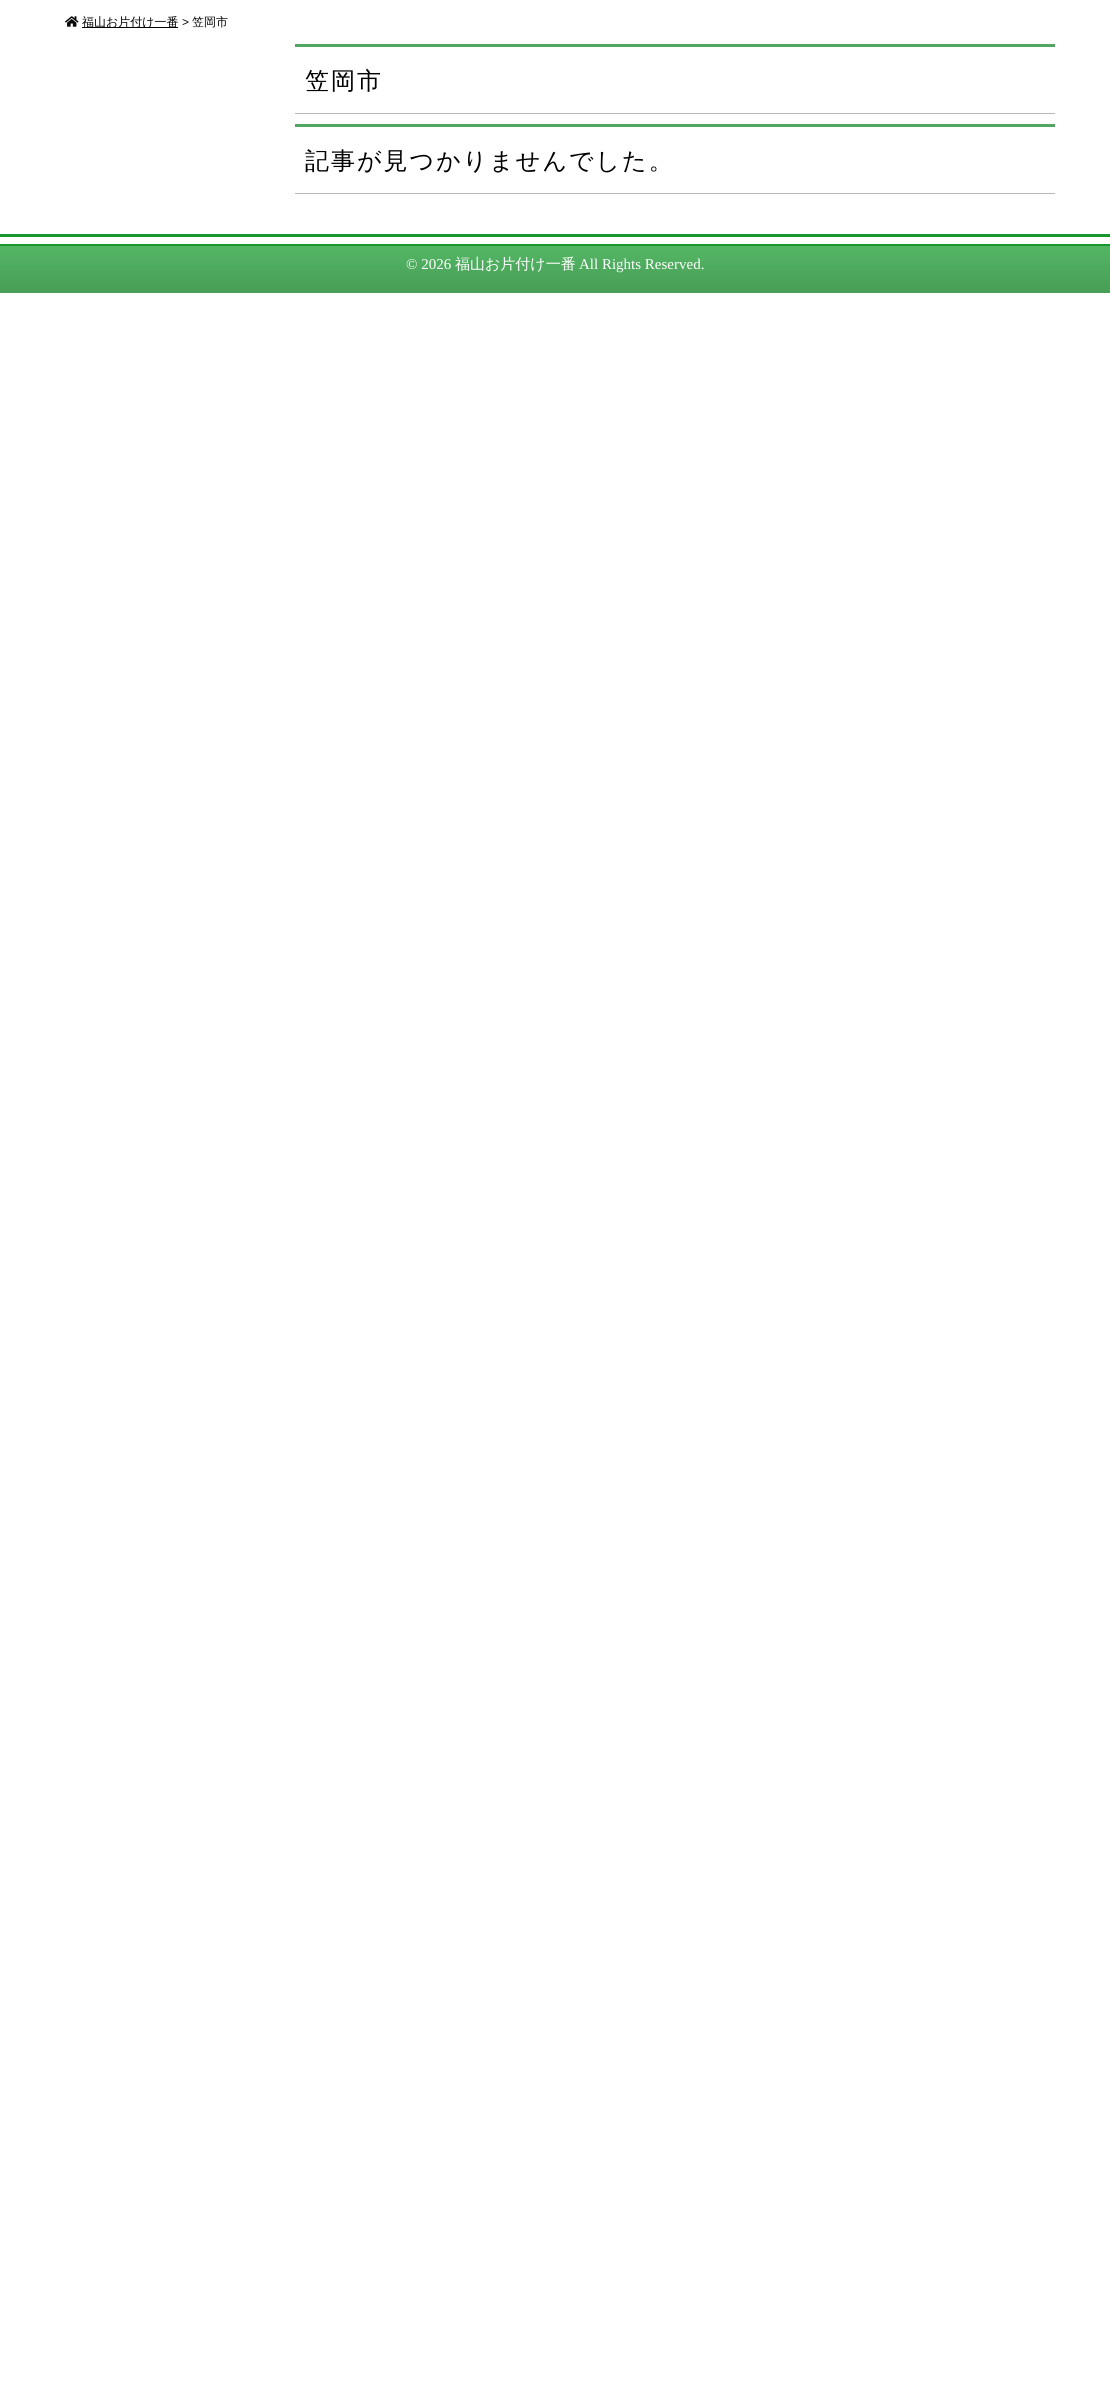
import math
import cairo


def write_spaced(ctx, x, y, s, letter, word):
	ctx.move_to(x, y)
	for ch in s:
		ctx.show_text(ch)
		ctx.rel_move_to(letter + word * (ch == ' '), 0)

def paste(ctx, path, x, y, w, h):
	ctx.save()
	ctx.set_source_surface(cairo.ImageSurface.create_from_png(path), x, y)
	ctx.rectangle(x, y, w, h)
	ctx.fill()
	ctx.restore()

def draw(ctx):
	ctx.set_source_rgb(1, 1, 1)
	ctx.paint()
	paste(ctx, 'media/1.png', 65, 16, 14, 11)
	ctx.set_source_rgb(0, 0, 0)
	ctx.rectangle(82, 27, 96, 1)
	ctx.fill()
	ctx.select_font_face('WenQuanYi Zen Hei Medium')
	ctx.set_font_size(12)
	ctx.move_to(82, 26)
	ctx.show_text('福山お片付け一番')
	ctx.select_font_face('Liberation Sans')
	ctx.set_source_rgb(0.031, 0.031, 0.031)
	ctx.move_to(182, 26)
	ctx.show_text('>')
	ctx.select_font_face('WenQuanYi Zen Hei Medium')
	ctx.move_to(192, 26)
	ctx.show_text('笠岡市')
	ctx.set_source_rgb(0.325, 0.643, 0.38)
	ctx.rectangle(295, 44, 760, 3)
	ctx.fill()
	ctx.set_source_rgb(0.725, 0.725, 0.725)
	ctx.rectangle(295, 113, 760, 1)
	ctx.fill()
	ctx.set_font_size(24)
	ctx.set_source_rgb(0, 0, 0)
	write_spaced(ctx, 305, 89, '笠岡市', 2, 0)
	ctx.set_source_rgb(0.325, 0.643, 0.38)
	ctx.rectangle(295, 124, 760, 3)
	ctx.fill()
	ctx.set_source_rgb(0.725, 0.725, 0.725)
	ctx.rectangle(295, 193, 760, 1)
	ctx.fill()
	ctx.set_source_rgb(0, 0, 0)
	write_spaced(ctx, 305, 169, '記事が見つかりませんでした。', 2, 0)
	paste(ctx, 'media/2.png', 0, 244, 1110, 49)
	ctx.set_source_rgb(0.09, 0.592, 0.176)
	ctx.rectangle(0, 234, 1110, 3)
	ctx.fill()
	ctx.select_font_face('Liberation Serif')
	ctx.set_font_size(15)
	ctx.set_source_rgb(1, 1, 1)
	ctx.move_to(406, 269)
	ctx.show_text('© 2026')
	ctx.select_font_face('WenQuanYi Zen Hei Medium')
	ctx.move_to(455, 269)
	ctx.show_text('福山お片付け一番')
	ctx.select_font_face('Liberation Serif')
	ctx.move_to(579, 269)
	ctx.show_text('All Rights Reserved.')


surface = cairo.ImageSurface(cairo.FORMAT_RGB24, 1110, 2382)
ctx = cairo.Context(surface)
options = cairo.FontOptions()
options.set_hint_metrics(cairo.HINT_METRICS_OFF)
options.set_hint_style(cairo.HINT_STYLE_NONE)
ctx.set_font_options(options)
ctx.set_miter_limit(4)
draw(ctx)
surface.write_to_png('image.png')
